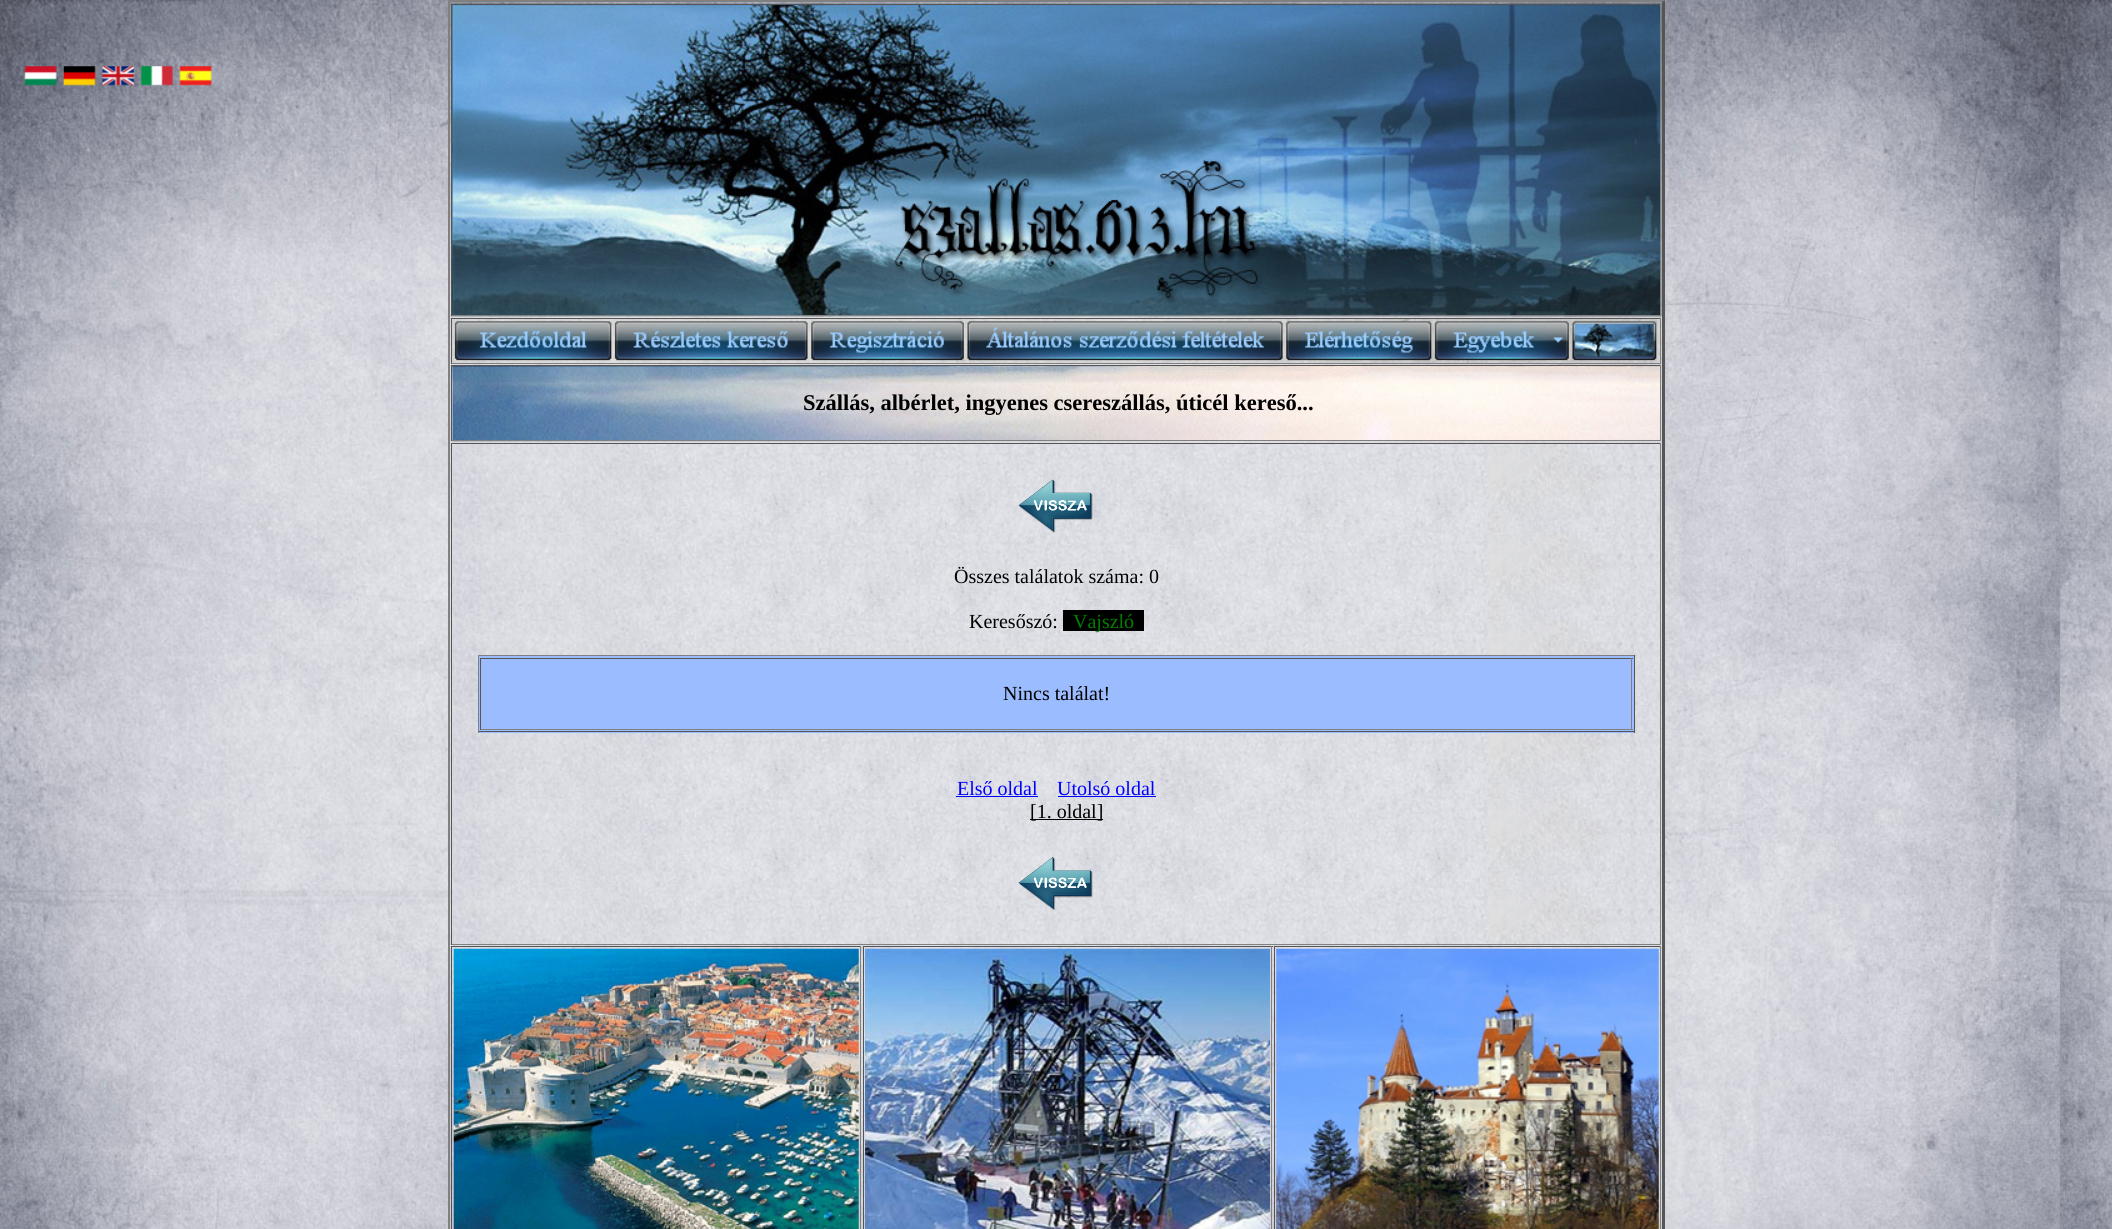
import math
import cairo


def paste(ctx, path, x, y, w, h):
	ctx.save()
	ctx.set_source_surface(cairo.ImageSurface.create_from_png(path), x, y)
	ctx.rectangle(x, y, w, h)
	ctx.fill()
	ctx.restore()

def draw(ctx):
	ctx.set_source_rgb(1, 1, 1)
	ctx.paint()
	paste(ctx, 'media/1.png', 0, 0, 2112, 1229)
	paste(ctx, 'media/2.png', 24, 66, 33, 20)
	paste(ctx, 'media/3.png', 63, 66, 33, 20)
	paste(ctx, 'media/4.png', 101, 66, 33, 20)
	paste(ctx, 'media/5.png', 140, 66, 33, 20)
	paste(ctx, 'media/6.png', 179, 66, 33, 20)
	ctx.set_source_rgb(0.502, 0.502, 0.502)
	ctx.new_path()
	ctx.move_to(448, 0)
	ctx.line_to(1665, 0)
	ctx.line_to(1662, 2)
	ctx.line_to(450, 2)
	ctx.close_path()
	ctx.fill()
	ctx.set_source_rgb(0.333, 0.333, 0.333)
	ctx.new_path()
	ctx.move_to(1665, 0)
	ctx.line_to(1665, 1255)
	ctx.line_to(1662, 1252)
	ctx.line_to(1662, 2)
	ctx.close_path()
	ctx.fill()
	ctx.set_source_rgb(0.502, 0.502, 0.502)
	ctx.new_path()
	ctx.move_to(448, 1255)
	ctx.line_to(448, 0)
	ctx.line_to(450, 2)
	ctx.line_to(450, 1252)
	ctx.close_path()
	ctx.fill()
	paste(ctx, 'media/7.png', 451, 3, 1211, 314)
	ctx.set_source_rgb(0.333, 0.333, 0.333)
	ctx.rectangle(451, 4, 1210, 1)
	ctx.fill()
	ctx.set_source_rgb(0.502, 0.502, 0.502)
	ctx.rectangle(1660, 4, 1, 312)
	ctx.rectangle(451, 315, 1210, 1)
	ctx.fill()
	ctx.set_source_rgb(0.333, 0.333, 0.333)
	ctx.rectangle(451, 4, 1, 312)
	ctx.fill()
	paste(ctx, 'media/8.png', 451, 317, 1211, 47)
	ctx.rectangle(451, 318, 1210, 1)
	ctx.fill()
	ctx.set_source_rgb(0.502, 0.502, 0.502)
	ctx.rectangle(1660, 318, 1, 46)
	ctx.rectangle(451, 363, 1210, 1)
	ctx.fill()
	ctx.set_source_rgb(0.333, 0.333, 0.333)
	ctx.rectangle(451, 318, 1, 46)
	ctx.fill()
	paste(ctx, 'media/9.png', 454, 321, 158, 40)
	paste(ctx, 'media/10.png', 614, 321, 194, 40)
	paste(ctx, 'media/11.png', 811, 321, 153, 40)
	paste(ctx, 'media/12.png', 967, 321, 316, 40)
	paste(ctx, 'media/13.png', 1286, 321, 146, 40)
	paste(ctx, 'media/14.png', 1434, 321, 135, 40)
	paste(ctx, 'media/15.png', 1572, 321, 85, 40)
	paste(ctx, 'media/16.png', 451, 365, 1211, 77)
	ctx.rectangle(451, 365, 1210, 1)
	ctx.fill()
	ctx.set_source_rgb(0.502, 0.502, 0.502)
	ctx.rectangle(1660, 365, 1, 76)
	ctx.rectangle(451, 440, 1210, 1)
	ctx.fill()
	ctx.set_source_rgb(0.333, 0.333, 0.333)
	ctx.rectangle(451, 365, 1, 76)
	ctx.fill()
	ctx.select_font_face('Liberation Serif', cairo.FONT_SLANT_NORMAL, cairo.FONT_WEIGHT_BOLD)
	ctx.set_font_size(22.5)
	ctx.set_source_rgb(0, 0, 0)
	ctx.move_to(803, 410)
	ctx.show_text('Szállás, albérlet, ingyenes csereszállás, úticél kereső...')
	paste(ctx, 'media/17.png', 451, 442, 1211, 503)
	ctx.set_source_rgb(0.333, 0.333, 0.333)
	ctx.rectangle(451, 443, 1210, 1)
	ctx.fill()
	ctx.set_source_rgb(0.502, 0.502, 0.502)
	ctx.rectangle(1660, 443, 1, 502)
	ctx.rectangle(451, 944, 1210, 1)
	ctx.fill()
	ctx.set_source_rgb(0.333, 0.333, 0.333)
	ctx.rectangle(451, 443, 1, 502)
	ctx.fill()
	paste(ctx, 'media/18.png', 1018, 479, 75, 54)
	ctx.select_font_face('Liberation Serif')
	ctx.set_font_size(20)
	ctx.set_source_rgb(0, 0, 0)
	ctx.move_to(954, 583)
	ctx.show_text('Összes találatok száma: 0')
	ctx.move_to(969, 628)
	ctx.show_text('Keresőszó:')
	ctx.rectangle(1063, 610, 81, 21)
	ctx.fill()
	ctx.set_source_rgb(0, 0.502, 0)
	ctx.move_to(1073, 628)
	ctx.show_text('Vajszló')
	ctx.set_source_rgb(0.608, 0.737, 1)
	ctx.rectangle(479, 656, 1155, 77)
	ctx.fill()
	ctx.set_source_rgb(0.502, 0.502, 0.502)
	ctx.rectangle(478, 655, 1157, 1)
	ctx.fill()
	ctx.set_source_rgb(0.333, 0.333, 0.333)
	ctx.rectangle(1634, 655, 1, 78)
	ctx.rectangle(478, 731, 1157, 1)
	ctx.fill()
	ctx.set_source_rgb(0.502, 0.502, 0.502)
	ctx.rectangle(478, 655, 1, 78)
	ctx.fill()
	ctx.set_source_rgb(0.333, 0.333, 0.333)
	ctx.rectangle(480, 658, 1153, 1)
	ctx.fill()
	ctx.set_source_rgb(0.502, 0.502, 0.502)
	ctx.rectangle(1631, 658, 1, 72)
	ctx.rectangle(480, 729, 1153, 1)
	ctx.fill()
	ctx.set_source_rgb(0.333, 0.333, 0.333)
	ctx.rectangle(480, 658, 1, 72)
	ctx.fill()
	ctx.set_source_rgb(0, 0, 0)
	ctx.move_to(1003, 700)
	ctx.show_text('Nincs találat!')
	ctx.set_source_rgb(0, 0, 1)
	ctx.move_to(957, 795)
	ctx.show_text('Első oldal')
	ctx.rectangle(956, 796, 82, 1)
	ctx.fill()
	ctx.move_to(1057, 795)
	ctx.show_text('Utolsó oldal')
	ctx.rectangle(1058, 796, 98, 1)
	ctx.fill()
	ctx.set_source_rgb(0, 0, 0)
	ctx.rectangle(1030, 819, 73, 1)
	ctx.fill()
	ctx.move_to(1030, 818)
	ctx.show_text('[1. oldal]')
	paste(ctx, 'media/19.png', 1018, 857, 75, 54)
	ctx.set_source_rgb(0.333, 0.333, 0.333)
	ctx.rectangle(451, 946, 410, 1)
	ctx.fill()
	ctx.set_source_rgb(0.502, 0.502, 0.502)
	ctx.rectangle(860, 946, 1, 283)
	ctx.fill()
	ctx.set_source_rgb(0.333, 0.333, 0.333)
	ctx.rectangle(451, 946, 1, 283)
	ctx.fill()
	paste(ctx, 'media/20.png', 453, 948, 406, 281)
	ctx.rectangle(863, 946, 410, 1)
	ctx.fill()
	ctx.set_source_rgb(0.502, 0.502, 0.502)
	ctx.rectangle(1271, 946, 1, 283)
	ctx.fill()
	ctx.set_source_rgb(0.333, 0.333, 0.333)
	ctx.rectangle(863, 946, 1, 283)
	ctx.fill()
	paste(ctx, 'media/21.png', 865, 948, 405, 281)
	ctx.rectangle(1274, 946, 387, 1)
	ctx.fill()
	ctx.set_source_rgb(0.502, 0.502, 0.502)
	ctx.rectangle(1660, 946, 1, 283)
	ctx.fill()
	ctx.set_source_rgb(0.333, 0.333, 0.333)
	ctx.rectangle(1274, 946, 1, 283)
	ctx.fill()
	paste(ctx, 'media/22.png', 1276, 948, 383, 281)


surface = cairo.ImageSurface(cairo.FORMAT_RGB24, 2112, 1229)
ctx = cairo.Context(surface)
options = cairo.FontOptions()
options.set_hint_metrics(cairo.HINT_METRICS_OFF)
options.set_hint_style(cairo.HINT_STYLE_NONE)
ctx.set_font_options(options)
ctx.set_miter_limit(4)
draw(ctx)
surface.write_to_png('image.png')
